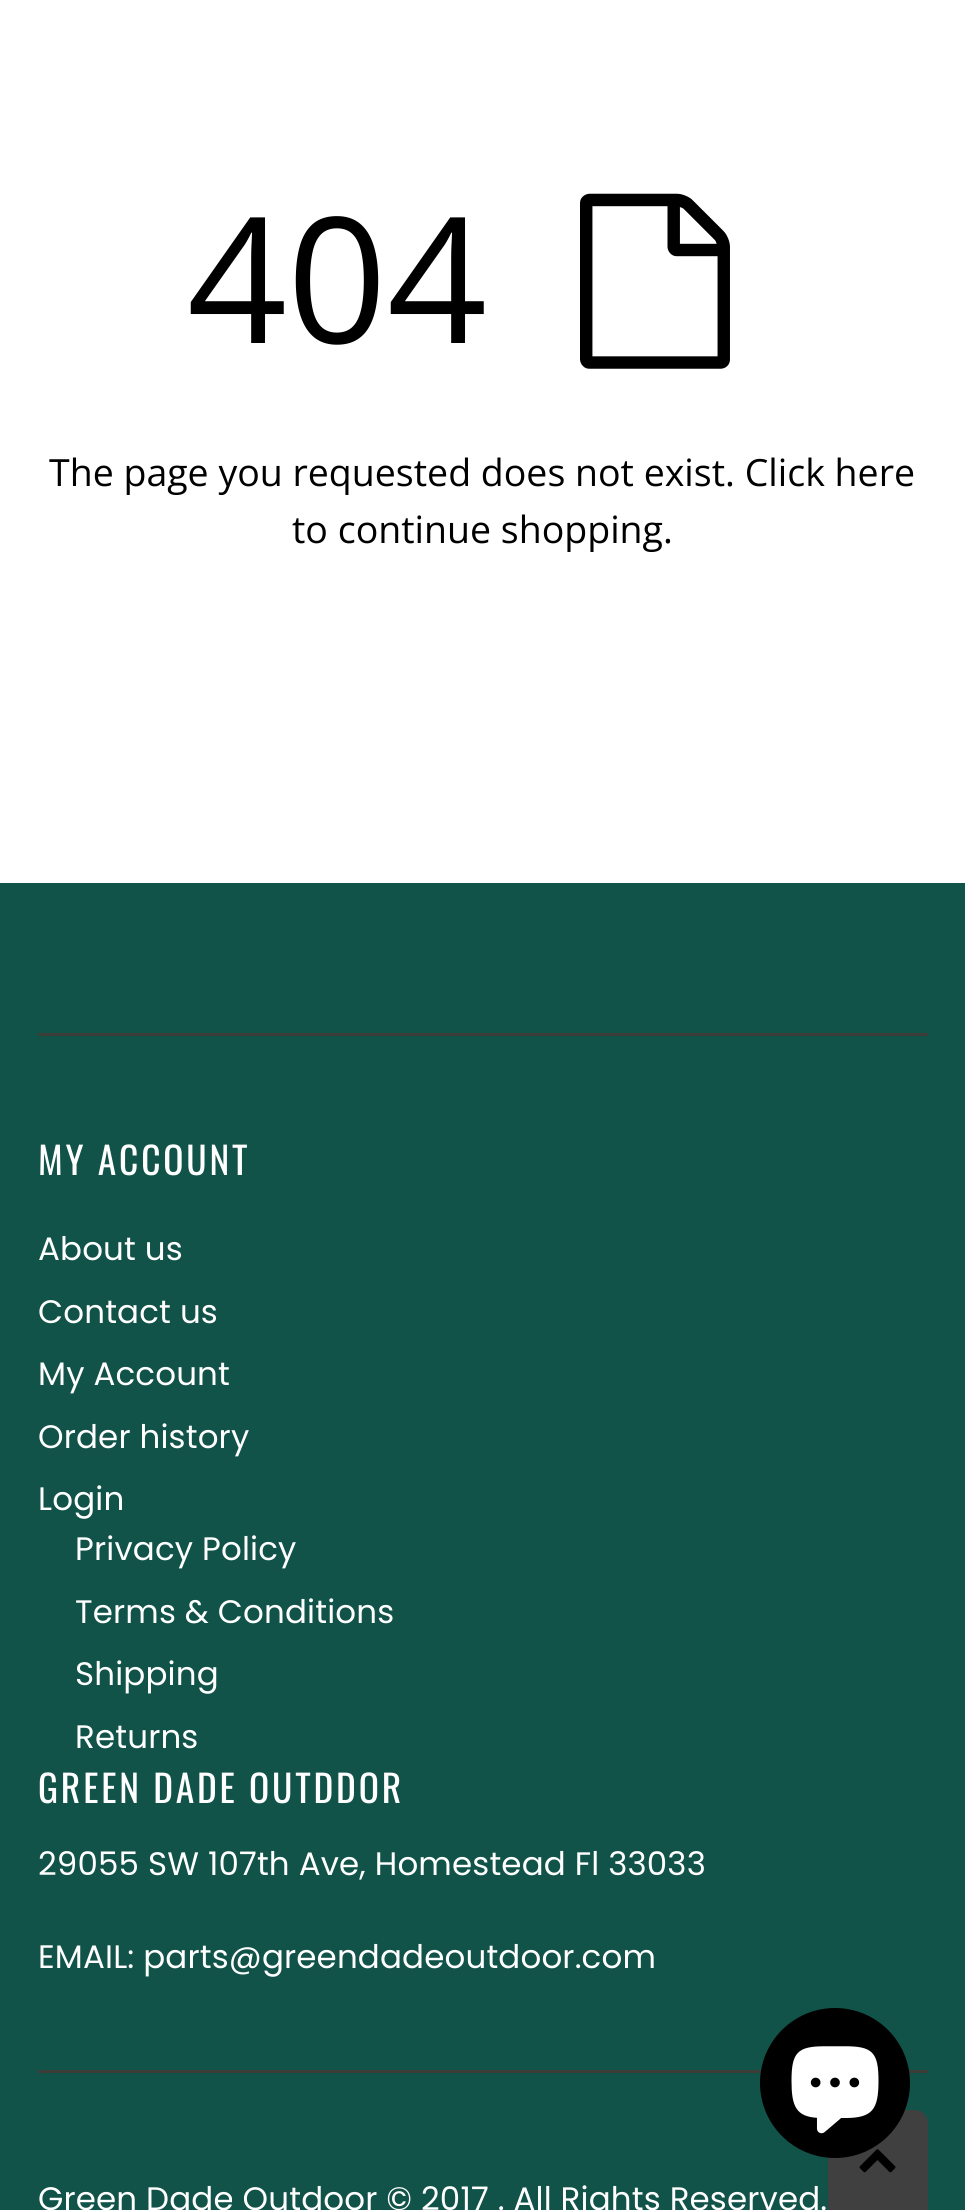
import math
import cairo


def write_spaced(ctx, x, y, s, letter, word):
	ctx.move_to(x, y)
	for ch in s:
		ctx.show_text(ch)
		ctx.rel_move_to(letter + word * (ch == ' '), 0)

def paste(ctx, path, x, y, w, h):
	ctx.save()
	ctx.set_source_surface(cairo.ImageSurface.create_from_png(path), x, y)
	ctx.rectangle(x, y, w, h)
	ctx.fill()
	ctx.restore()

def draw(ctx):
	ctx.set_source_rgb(1, 1, 1)
	ctx.paint()
	ctx.select_font_face('Open Sans')
	ctx.set_font_size(175)
	ctx.set_source_rgb(0, 0, 0)
	ctx.move_to(187, 343)
	ctx.show_text('404')
	paste(ctx, 'media/1.png', 580, 193, 150, 176)
	ctx.set_font_size(37.5)
	ctx.move_to(49, 486)
	ctx.show_text('The page you requested does not exist. Click here')
	ctx.move_to(292, 543)
	ctx.show_text('to continue shopping.')
	ctx.set_source_rgb(0.067, 0.325, 0.286)
	ctx.rectangle(0, 883, 965, 1327)
	ctx.fill()
	ctx.set_source_rgb(0.239, 0.239, 0.22)
	ctx.rectangle(38, 1033, 890, 3)
	ctx.fill()
	ctx.select_font_face('Oswald')
	ctx.set_source_rgb(1, 1, 1)
	write_spaced(ctx, 38, 1175, 'MY ACCOUNT', 2.8, 0)
	ctx.select_font_face('Poppins')
	ctx.set_font_size(32.5)
	for x, y, s in [
		(38, 1260, 'About us'),
		(38, 1323, 'Contact us'),
		(38, 1385, 'My Account'),
		(38, 1448, 'Order history'),
		(38, 1510, 'Login'),
		(75, 1560, 'Privacy Policy'),
		(75, 1623, 'Terms & Conditions'),
		(75, 1685, 'Shipping'),
		(75, 1748, 'Returns'),
	]:
		write_spaced(ctx, x, y, s, 0.15, 0)
	ctx.select_font_face('Oswald')
	ctx.set_font_size(37.5)
	write_spaced(ctx, 38, 1803, 'GREEN DADE OUTDDOR', 2.8, 0)
	ctx.select_font_face('Poppins')
	ctx.set_font_size(32.5)
	write_spaced(ctx, 38, 1875, '29055 SW 107th Ave, Homestead Fl 33033', 0.15, 0)
	write_spaced(ctx, 38, 1968, 'EMAIL: parts@greendadeoutdoor.com', 0.15, 0)
	ctx.set_source_rgb(0.239, 0.239, 0.22)
	ctx.rectangle(38, 2070, 890, 3)
	ctx.fill()
	ctx.set_source_rgb(1, 1, 1)
	write_spaced(ctx, 38, 2210, 'Green Dade Outdoor © 2017 . All Rights Reserved.', 0.15, 0)
	ctx.set_source_rgb(0.251, 0.251, 0.251)
	ctx.new_path()
	ctx.move_to(841, 2110)
	ctx.line_to(915, 2110)
	ctx.curve_to(922, 2110, 928, 2116, 928, 2123)
	ctx.line_to(928, 2210)
	ctx.line_to(828, 2210)
	ctx.line_to(828, 2123)
	ctx.curve_to(828, 2116, 834, 2110, 841, 2110)
	ctx.close_path()
	ctx.fill()
	paste(ctx, 'media/2.png', 859, 2149, 37, 24)
	ctx.set_source_rgb(0, 0, 0)
	ctx.arc(835, 2083, 75, 0, 2 * math.pi)
	ctx.fill()
	paste(ctx, 'media/3.png', 791, 2046, 88, 88)


surface = cairo.ImageSurface(cairo.FORMAT_RGB24, 965, 2210)
ctx = cairo.Context(surface)
options = cairo.FontOptions()
options.set_hint_metrics(cairo.HINT_METRICS_OFF)
options.set_hint_style(cairo.HINT_STYLE_NONE)
ctx.set_font_options(options)
ctx.set_miter_limit(4)
draw(ctx)
surface.write_to_png('image.png')
